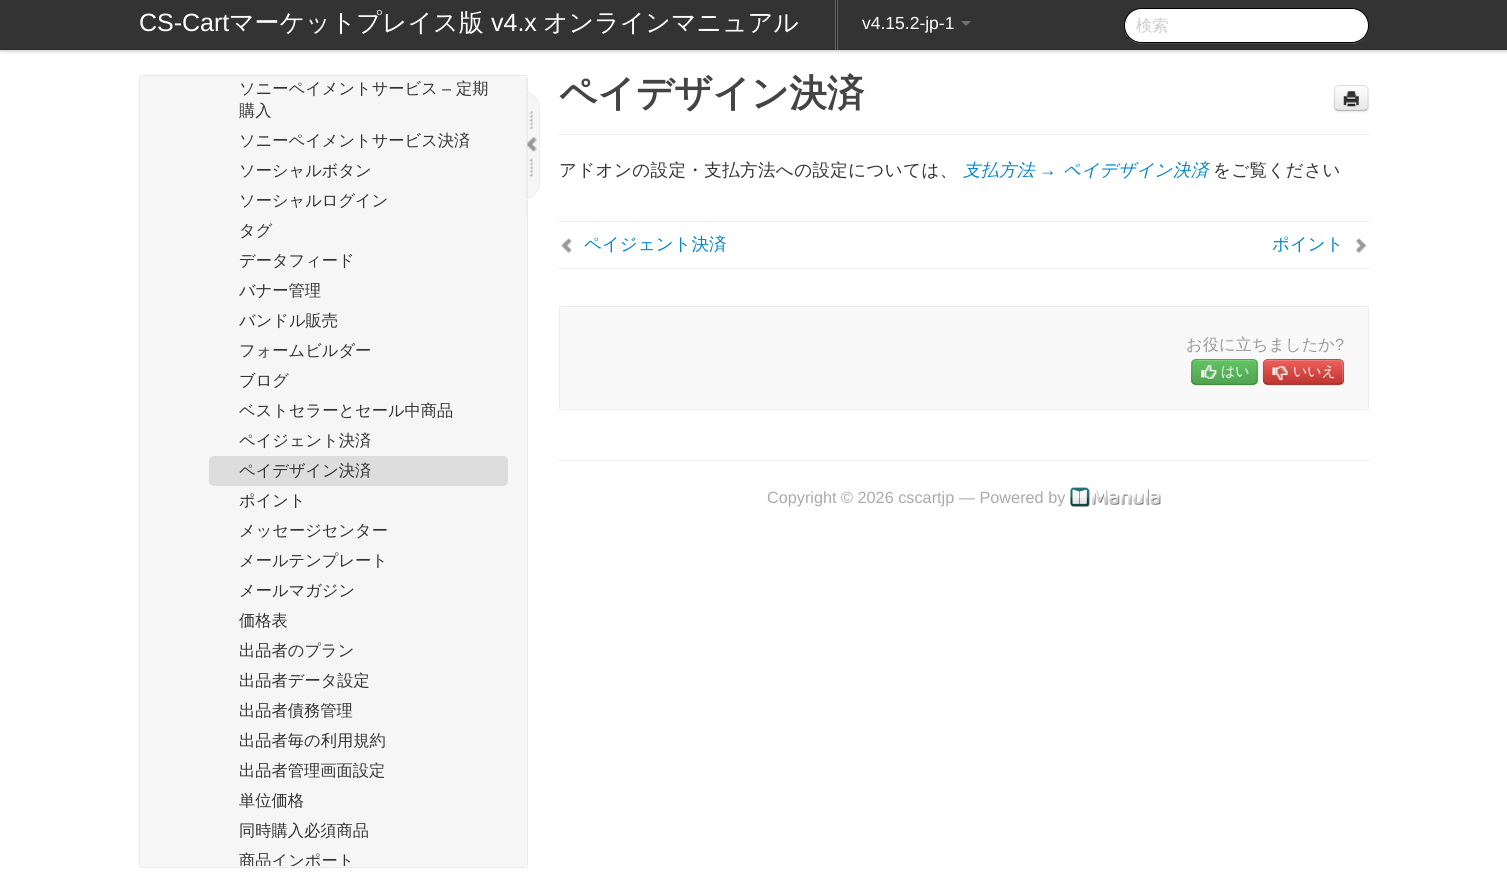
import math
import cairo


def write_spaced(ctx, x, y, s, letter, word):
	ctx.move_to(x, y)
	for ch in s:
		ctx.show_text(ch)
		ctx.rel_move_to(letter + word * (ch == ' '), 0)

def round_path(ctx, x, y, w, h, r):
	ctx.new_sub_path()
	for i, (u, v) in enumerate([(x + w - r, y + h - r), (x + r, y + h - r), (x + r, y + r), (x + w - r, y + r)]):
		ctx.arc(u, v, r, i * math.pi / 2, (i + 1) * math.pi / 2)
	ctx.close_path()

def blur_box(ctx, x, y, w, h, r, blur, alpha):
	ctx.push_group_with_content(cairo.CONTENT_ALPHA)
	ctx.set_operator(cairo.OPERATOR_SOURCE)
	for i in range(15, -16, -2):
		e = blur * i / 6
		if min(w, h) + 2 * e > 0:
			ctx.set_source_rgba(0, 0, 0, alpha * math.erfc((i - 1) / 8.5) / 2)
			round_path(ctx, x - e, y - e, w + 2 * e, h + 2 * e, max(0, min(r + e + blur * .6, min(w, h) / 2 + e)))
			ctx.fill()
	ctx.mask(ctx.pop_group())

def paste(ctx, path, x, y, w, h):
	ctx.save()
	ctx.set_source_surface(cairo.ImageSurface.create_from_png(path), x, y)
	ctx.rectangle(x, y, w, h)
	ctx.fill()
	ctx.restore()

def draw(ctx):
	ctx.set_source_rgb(1, 1, 1)
	ctx.paint()
	ctx.set_source_rgb(0, 0, 0)
	blur_box(ctx, 0, 1, 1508, 50, 0, 2, 0.25)
	ctx.set_source_rgb(0.2, 0.2, 0.2)
	ctx.rectangle(0, 0, 1507, 49)
	ctx.fill()
	ctx.set_source_rgb(0.18, 0.18, 0.18)
	ctx.rectangle(0, 49, 1507, 1)
	ctx.fill()
	ctx.select_font_face('Liberation Sans')
	ctx.set_font_size(25)
	ctx.set_source_rgb(1, 1, 1)
	ctx.move_to(139, 31)
	ctx.show_text('CS-Cart')
	ctx.select_font_face('WenQuanYi Zen Hei Medium')
	ctx.move_to(229, 31)
	ctx.show_text('マーケットプレイス版')
	ctx.select_font_face('Liberation Sans')
	ctx.move_to(491, 31)
	ctx.show_text('v4.x')
	ctx.select_font_face('WenQuanYi Zen Hei Medium')
	ctx.move_to(543, 31)
	ctx.show_text('オンラインマニュアル')
	ctx.set_source_rgb(0.4, 0.4, 0.4)
	ctx.rectangle(835, 0, 3, 50)
	ctx.fill()
	ctx.set_source_rgb(0.133, 0.133, 0.133)
	ctx.rectangle(836, 0, 1, 50)
	ctx.fill()
	ctx.select_font_face('Liberation Sans')
	ctx.set_font_size(17.5)
	ctx.set_source_rgb(1, 1, 1)
	ctx.move_to(862, 29)
	ctx.show_text('v4.15.2-jp-1')
	ctx.set_source_rgb(0.439, 0.439, 0.439)
	ctx.new_path()
	ctx.move_to(961, 21)
	ctx.line_to(971, 21)
	ctx.line_to(966, 26)
	ctx.close_path()
	ctx.fill()
	ctx.set_source_rgb(0.322, 0.322, 0.322)
	ctx.new_path()
	ctx.move_to(1124, 29)
	ctx.curve_to(1125, 37, 1133, 44, 1142, 44)
	ctx.line_to(1352, 44)
	ctx.curve_to(1361, 44, 1369, 36, 1369, 26)
	ctx.line_to(1369, 23)
	ctx.line_to(1369, 25)
	ctx.curve_to(1369, 35, 1361, 42, 1351, 42)
	ctx.line_to(1141, 42)
	ctx.curve_to(1133, 42, 1126, 37, 1124, 29)
	ctx.close_path()
	ctx.fill()
	ctx.set_source_rgb(1, 1, 1)
	round_path(ctx, 1124.5, 8.5, 244, 34, 17)
	ctx.fill_preserve()
	ctx.set_source_rgb(0, 0, 0)
	ctx.set_line_width(1)
	ctx.stroke()
	ctx.select_font_face('WenQuanYi Zen Hei Medium')
	ctx.set_font_size(16.25)
	ctx.set_source_rgb(0.8, 0.8, 0.8)
	ctx.move_to(1136, 31)
	ctx.show_text('検索')
	ctx.set_source_rgb(0.961, 0.961, 0.961)
	round_path(ctx, 139, 75, 389, 793, 5)
	ctx.fill()
	ctx.rectangle(139.5, 75.5, 388, 792)
	ctx.set_source_rgba(0, 0, 0, 0.05)
	ctx.stroke()
	ctx.set_source_rgb(0.2, 0.2, 0.2)
	ctx.move_to(239, 94)
	ctx.show_text('ソニーペイメントサービス')
	ctx.select_font_face('Liberation Sans')
	ctx.move_to(442, 94)
	ctx.show_text('–')
	ctx.select_font_face('WenQuanYi Zen Hei Medium')
	for x, y, s in [
		(456, 94, '定期'),
		(239, 116, '購入'),
		(239, 146, 'ソニーペイメントサービス決済'),
		(239, 176, 'ソーシャルボタン'),
		(239, 206, 'ソーシャルログイン'),
		(239, 236, 'タグ'),
		(239, 266, 'データフィード'),
		(239, 296, 'バナー管理'),
		(239, 326, 'バンドル販売'),
		(239, 356, 'フォームビルダー'),
		(239, 386, 'ブログ'),
		(239, 416, 'ベストセラーとセール中商品'),
		(239, 446, 'ペイジェント決済'),
	]:
		ctx.move_to(x, y)
		ctx.show_text(s)
	ctx.set_source_rgb(0.867, 0.867, 0.867)
	round_path(ctx, 209, 456, 299, 30, 5)
	ctx.fill()
	ctx.set_source_rgb(0.2, 0.2, 0.2)
	for x, y, s in [
		(239, 476, 'ペイデザイン決済'),
		(239, 506, 'ポイント'),
		(239, 536, 'メッセージセンター'),
		(239, 566, 'メールテンプレート'),
		(239, 596, 'メールマガジン'),
		(239, 626, '価格表'),
		(239, 656, '出品者のプラン'),
		(239, 686, '出品者データ設定'),
		(239, 716, '出品者債務管理'),
		(239, 746, '出品者毎の利用規約'),
		(239, 776, '出品者管理画面設定'),
		(239, 806, '単位価格'),
		(239, 836, '同時購入必須商品'),
	]:
		ctx.move_to(x, y)
		ctx.show_text(s)
	ctx.save()
	round_path(ctx, 140, 76, 386, 790, 4)
	ctx.clip()
	ctx.move_to(239, 866)
	ctx.show_text('商品インポート')
	ctx.restore()
	ctx.set_source_rgb(0.922, 0.922, 0.922)
	ctx.rectangle(526, 79, 1, 137)
	ctx.fill()
	ctx.set_source_rgb(0.961, 0.961, 0.961)
	ctx.new_path()
	ctx.move_to(528, 91)
	ctx.line_to(522, 91)
	ctx.curve_to(532, 91, 540, 99, 540, 109)
	ctx.line_to(540, 182)
	ctx.curve_to(540, 192, 532, 200, 522, 200)
	ctx.line_to(528, 200)
	ctx.close_path()
	ctx.fill()
	ctx.save()
	ctx.rectangle(528, 79, 25, 137)
	ctx.clip()
	round_path(ctx, 504.5, 91.5, 35, 108, 17.5)
	ctx.set_source_rgb(0.922, 0.922, 0.922)
	ctx.stroke()
	ctx.restore()
	paste(ctx, 'media/1.png', 529, 111, 4, 19)
	paste(ctx, 'media/2.png', 527, 137, 10, 15)
	paste(ctx, 'media/3.png', 529, 158, 4, 19)
	ctx.set_source_rgb(0.933, 0.933, 0.933)
	ctx.rectangle(559, 134, 810, 1)
	ctx.fill()
	ctx.select_font_face('WenQuanYi Zen Hei', cairo.FONT_SLANT_NORMAL, cairo.FONT_WEIGHT_BOLD)
	ctx.set_font_size(37.5)
	ctx.set_source_rgb(0.267, 0.267, 0.267)
	ctx.move_to(559, 106)
	ctx.show_text('ペイデザイン決済')
	ctx.set_source_rgb(0, 0, 0)
	blur_box(ctx, 1334, 86, 35, 27, 5, 1, 0.05)
	ctx.set_source_rgb(0.961, 0.961, 0.961)
	round_path(ctx, 1334, 85, 35, 26, 5)
	ctx.fill()
	ctx.save()
	round_path(ctx, 1334, 85, 35, 26, 5)
	ctx.clip()
	gradient = cairo.LinearGradient(1351, 86, 1351, 110)
	gradient.add_color_stop_rgba(0, 1, 1, 1, 1)
	gradient.add_color_stop_rgba(1, 0.902, 0.902, 0.902, 1)
	ctx.set_source(gradient)
	ctx.rectangle(1334, 86, 35, 24)
	ctx.fill()
	ctx.restore()
	ctx.new_path()
	ctx.move_to(1367, 109.5)
	ctx.curve_to(1366, 110, 1365, 110.5, 1364, 110.5)
	ctx.line_to(1339, 110.5)
	ctx.curve_to(1337.5, 110.5, 1336.5, 110, 1335.5, 109.5)
	ctx.set_source_rgba(0, 0, 0, 0.25)
	ctx.set_line_width(1.2)
	ctx.stroke()
	ctx.new_path()
	ctx.move_to(1335.5, 109.5)
	ctx.curve_to(1334, 108, 1334.5, 105.5, 1334.5, 103.5)
	ctx.line_to(1334.5, 89)
	ctx.curve_to(1335.5, 85, 1340, 85.5, 1343, 85.5)
	ctx.line_to(1359.5, 85.5)
	ctx.curve_to(1362.5, 85.5, 1367, 85, 1368, 89)
	ctx.line_to(1368, 103.5)
	ctx.curve_to(1368, 105.5, 1368.5, 108, 1367, 109.5)
	ctx.set_source_rgba(0, 0, 0, 0.1)
	ctx.stroke()
	paste(ctx, 'media/4.png', 1343, 91, 16, 16)
	ctx.select_font_face('WenQuanYi Zen Hei Medium')
	ctx.set_font_size(17.5)
	ctx.set_source_rgb(0.2, 0.2, 0.2)
	write_spaced(ctx, 559, 176, 'アドオンの設定・支払方法への設定については、', 0.4, 0)
	ctx.select_font_face('WenQuanYi Zen Hei Medium', cairo.FONT_SLANT_ITALIC)
	ctx.set_source_rgb(0, 0.533, 0.8)
	write_spaced(ctx, 963, 176, '支払方法', 0.4, 0)
	ctx.select_font_face('Liberation Sans', cairo.FONT_SLANT_ITALIC)
	write_spaced(ctx, 1039, 176, '→', 0.4, 0)
	ctx.select_font_face('WenQuanYi Zen Hei Medium', cairo.FONT_SLANT_ITALIC)
	write_spaced(ctx, 1063, 176, 'ペイデザイン決済', 0.4, 0)
	ctx.select_font_face('WenQuanYi Zen Hei Medium')
	ctx.set_source_rgb(0.2, 0.2, 0.2)
	write_spaced(ctx, 1213, 176, 'をご覧ください', 0.4, 0)
	ctx.set_source_rgb(0.933, 0.933, 0.933)
	ctx.rectangle(559, 221, 810, 1)
	ctx.fill()
	ctx.rectangle(559, 268, 810, 1)
	ctx.fill()
	paste(ctx, 'media/5.png', 561, 238, 11, 15)
	ctx.set_source_rgb(0, 0.533, 0.8)
	ctx.move_to(584, 250)
	ctx.show_text('ペイジェント決済')
	ctx.move_to(1272, 250)
	ctx.show_text('ポイント')
	paste(ctx, 'media/6.png', 1356, 238, 11, 15)
	ctx.set_source_rgb(0.976, 0.976, 0.976)
	round_path(ctx, 559, 306, 810, 104, 5)
	ctx.fill()
	ctx.rectangle(559.5, 306.5, 809, 103)
	ctx.set_source_rgba(0, 0, 0, 0.05)
	ctx.set_line_width(1)
	ctx.stroke()
	ctx.set_font_size(16.25)
	ctx.set_source_rgb(0.6, 0.6, 0.6)
	ctx.move_to(1186, 350)
	ctx.show_text('お役に立ちましたか')
	ctx.select_font_face('Liberation Sans')
	ctx.move_to(1335, 350)
	ctx.show_text('?')
	ctx.set_source_rgb(0, 0, 0)
	blur_box(ctx, 1191, 360, 67, 26, 5, 1, 0.05)
	ctx.set_source_rgb(0.357, 0.718, 0.357)
	round_path(ctx, 1191, 359, 67, 26, 5)
	ctx.fill()
	ctx.save()
	round_path(ctx, 1191, 359, 67, 26, 5)
	ctx.clip()
	gradient = cairo.LinearGradient(1224, 360, 1224, 384)
	gradient.add_color_stop_rgba(0, 0.384, 0.769, 0.384, 1)
	gradient.add_color_stop_rgba(1, 0.318, 0.639, 0.318, 1)
	ctx.set_source(gradient)
	ctx.rectangle(1191, 360, 67, 24)
	ctx.fill()
	ctx.restore()
	ctx.set_source_rgb(0.506, 0.812, 0.506)
	ctx.new_path()
	ctx.move_to(1196, 361)
	ctx.line_to(1252, 361)
	ctx.curve_to(1255, 361, 1256, 363, 1256, 365)
	ctx.line_to(1256, 364)
	ctx.curve_to(1256, 362, 1254, 360, 1252, 360)
	ctx.line_to(1197, 360)
	ctx.curve_to(1196, 360, 1194, 361, 1194, 362)
	ctx.close_path()
	ctx.fill()
	ctx.new_path()
	ctx.move_to(1255.5, 383)
	ctx.curve_to(1255, 384, 1253.5, 384.5, 1252.5, 384.5)
	ctx.line_to(1196, 384.5)
	ctx.curve_to(1195, 384.5, 1194, 384, 1193, 383)
	ctx.set_source_rgba(0, 0, 0, 0.25)
	ctx.set_line_width(1.2)
	ctx.stroke()
	ctx.new_path()
	ctx.move_to(1193, 383)
	ctx.curve_to(1190.5, 380.5, 1192, 375, 1192, 372)
	ctx.curve_to(1192, 358, 1191.5, 359.5, 1205.5, 359.5)
	ctx.line_to(1243, 359.5)
	ctx.curve_to(1257.5, 359.5, 1257, 358, 1257, 372)
	ctx.curve_to(1257, 375, 1258, 380.5, 1255.5, 383)
	ctx.set_source_rgba(0, 0, 0, 0.1)
	ctx.stroke()
	paste(ctx, 'media/7.png', 1201, 364, 16, 16)
	ctx.select_font_face('WenQuanYi Zen Hei Medium')
	ctx.set_font_size(14)
	ctx.set_source_rgb(1, 1, 1)
	ctx.move_to(1221, 376)
	ctx.show_text('はい')
	ctx.set_source_rgb(0, 0, 0)
	blur_box(ctx, 1263, 360, 81, 26, 5, 1, 0.05)
	ctx.set_source_rgb(0.855, 0.31, 0.286)
	round_path(ctx, 1263, 359, 81, 26, 5)
	ctx.fill()
	ctx.save()
	round_path(ctx, 1263, 359, 81, 26, 5)
	ctx.clip()
	gradient = cairo.LinearGradient(1303, 360, 1303, 384)
	gradient.add_color_stop_rgba(0, 0.933, 0.373, 0.357, 1)
	gradient.add_color_stop_rgba(1, 0.741, 0.212, 0.184, 1)
	ctx.set_source(gradient)
	ctx.rectangle(1263, 360, 81, 24)
	ctx.fill()
	ctx.restore()
	ctx.set_source_rgba(1, 1, 1, 0.2)
	ctx.new_path()
	ctx.move_to(1268, 361)
	ctx.line_to(1327, 361)
	ctx.curve_to(1341, 361, 1342, 358, 1342, 370)
	ctx.line_to(1342, 383)
	ctx.curve_to(1344, 381, 1343, 375, 1343, 372)
	ctx.curve_to(1343, 369, 1345, 360, 1339, 360)
	ctx.line_to(1280, 360)
	ctx.curve_to(1275, 360, 1264, 357, 1264, 365)
	ctx.curve_to(1264, 363, 1265, 361, 1268, 361)
	ctx.close_path()
	ctx.fill()
	ctx.new_path()
	ctx.move_to(1342, 383)
	ctx.line_to(1339, 384.5)
	ctx.line_to(1267, 384.5)
	ctx.line_to(1264.5, 383)
	ctx.set_source_rgba(0, 0, 0, 0.25)
	ctx.stroke()
	ctx.new_path()
	ctx.move_to(1264.5, 383)
	ctx.curve_to(1262.5, 381, 1263, 377, 1263, 374.5)
	ctx.curve_to(1263, 357.5, 1261.5, 359.5, 1279.5, 359.5)
	ctx.line_to(1327, 359.5)
	ctx.curve_to(1345, 359.5, 1343, 357.5, 1343, 374.5)
	ctx.curve_to(1343, 377, 1344, 381, 1342, 383)
	ctx.set_source_rgba(0, 0, 0, 0.1)
	ctx.stroke()
	paste(ctx, 'media/8.png', 1272, 366, 16, 16)
	ctx.set_source_rgb(1, 1, 1)
	ctx.move_to(1293, 376)
	ctx.show_text('いいえ')
	ctx.set_source_rgb(0.933, 0.933, 0.933)
	ctx.rectangle(559, 460, 810, 1)
	ctx.fill()
	ctx.select_font_face('Liberation Sans')
	ctx.set_font_size(16.25)
	ctx.set_source_rgb(0.667, 0.667, 0.667)
	ctx.move_to(767, 503)
	ctx.show_text('Copyright © 2026 cscartjp — Powered by')
	paste(ctx, 'media/9.png', 1070, 487, 91, 21)


surface = cairo.ImageSurface(cairo.FORMAT_RGB24, 1507, 892)
ctx = cairo.Context(surface)
options = cairo.FontOptions()
options.set_hint_metrics(cairo.HINT_METRICS_OFF)
options.set_hint_style(cairo.HINT_STYLE_NONE)
ctx.set_font_options(options)
ctx.set_miter_limit(4)
draw(ctx)
surface.write_to_png('image.png')
